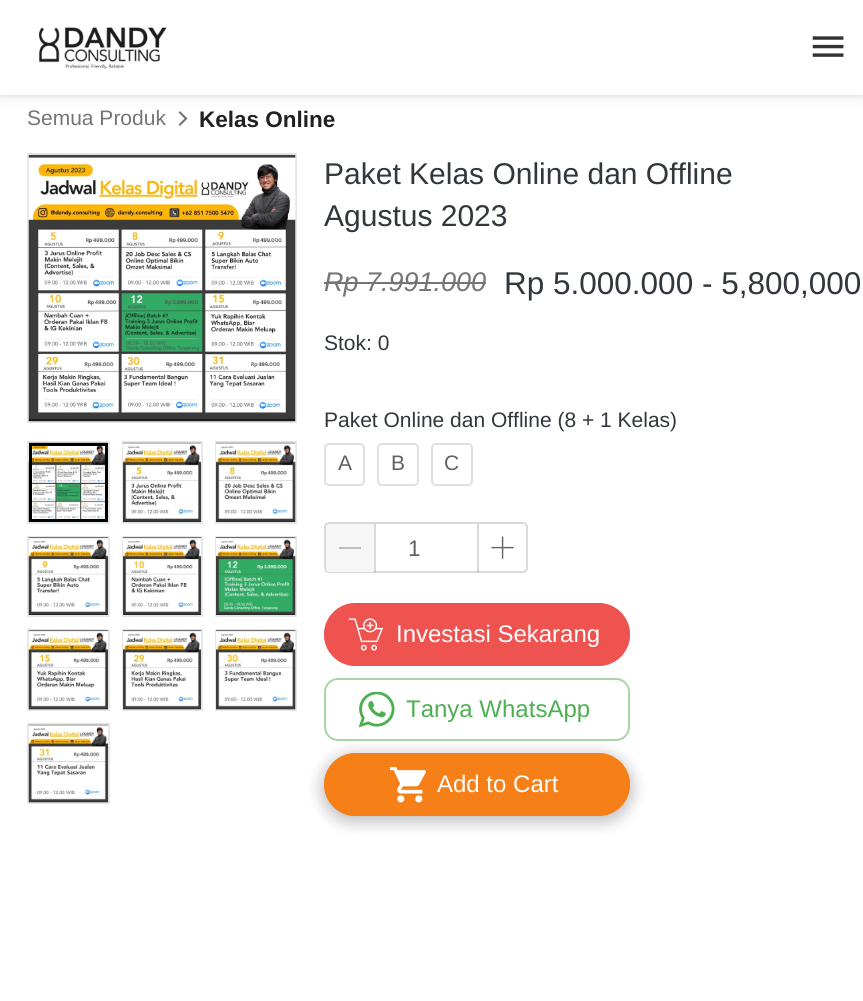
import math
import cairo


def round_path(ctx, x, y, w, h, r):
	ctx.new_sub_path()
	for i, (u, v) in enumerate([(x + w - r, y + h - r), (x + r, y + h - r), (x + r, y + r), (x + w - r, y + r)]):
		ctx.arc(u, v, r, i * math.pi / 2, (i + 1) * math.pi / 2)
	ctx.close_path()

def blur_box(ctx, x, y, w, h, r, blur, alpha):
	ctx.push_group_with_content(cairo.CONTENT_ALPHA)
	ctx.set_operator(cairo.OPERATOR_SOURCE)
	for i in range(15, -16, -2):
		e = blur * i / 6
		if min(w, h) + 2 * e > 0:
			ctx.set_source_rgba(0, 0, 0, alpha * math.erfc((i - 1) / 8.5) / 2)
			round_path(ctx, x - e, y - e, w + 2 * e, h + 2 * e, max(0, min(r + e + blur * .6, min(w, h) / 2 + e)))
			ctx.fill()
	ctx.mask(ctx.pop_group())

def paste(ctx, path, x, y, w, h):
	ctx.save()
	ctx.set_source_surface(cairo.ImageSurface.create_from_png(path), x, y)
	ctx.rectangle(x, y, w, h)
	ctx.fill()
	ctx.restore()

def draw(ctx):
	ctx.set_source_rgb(1, 1, 1)
	ctx.paint()
	ctx.set_source_rgb(0, 0, 0)
	blur_box(ctx, 0, 2, 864, 94, 0, 3, 0.1)
	paste(ctx, 'media/3.png', 178, 111, 10, 15)
	blur_box(ctx, 0, 3, 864, 95, 0, 7.5, 0.05)
	ctx.set_source_rgb(1, 1, 1)
	ctx.rectangle(0, 0, 863, 95)
	ctx.fill()
	paste(ctx, 'media/1.png', 38, 27, 129, 42)
	paste(ctx, 'media/2.png', 812, 36, 32, 21)
	ctx.select_font_face('Liberation Sans')
	ctx.set_font_size(21)
	ctx.set_source_rgb(0.459, 0.459, 0.459)
	ctx.move_to(27, 125)
	ctx.show_text('Semua Produk')
	ctx.select_font_face('Liberation Sans', cairo.FONT_SLANT_NORMAL, cairo.FONT_WEIGHT_BOLD)
	ctx.set_font_size(22.5)
	ctx.set_source_rgb(0.129, 0.129, 0.129)
	ctx.move_to(199, 127)
	ctx.show_text('Kelas Online')
	ctx.rectangle(28, 154, 268, 268)
	ctx.set_source_rgb(0.902, 0.902, 0.902)
	ctx.stroke()
	paste(ctx, 'media/4.png', 28, 154, 268, 268)
	ctx.rectangle(28, 442, 81, 81)
	ctx.stroke()
	paste(ctx, 'media/5.png', 28, 442, 80, 80)
	ctx.rectangle(30.5, 444.5, 76, 76)
	ctx.set_source_rgb(0, 0, 0)
	ctx.set_line_width(3)
	ctx.stroke()
	ctx.rectangle(123, 442, 79, 81)
	ctx.set_source_rgb(0.902, 0.902, 0.902)
	ctx.set_line_width(2)
	ctx.stroke()
	paste(ctx, 'media/6.png', 123, 442, 78, 80)
	ctx.rectangle(216, 442, 80, 81)
	ctx.stroke()
	paste(ctx, 'media/7.png', 216, 442, 80, 80)
	ctx.rectangle(28, 537, 81, 79)
	ctx.stroke()
	paste(ctx, 'media/8.png', 28, 537, 80, 78)
	ctx.rectangle(123, 537, 79, 79)
	ctx.stroke()
	paste(ctx, 'media/9.png', 123, 537, 78, 78)
	ctx.rectangle(216, 537, 80, 79)
	ctx.stroke()
	paste(ctx, 'media/10.png', 216, 537, 80, 78)
	ctx.rectangle(28, 630, 81, 80)
	ctx.stroke()
	paste(ctx, 'media/11.png', 28, 630, 80, 80)
	ctx.rectangle(123, 630, 79, 80)
	ctx.stroke()
	paste(ctx, 'media/12.png', 123, 630, 78, 80)
	ctx.rectangle(216, 630, 80, 80)
	ctx.stroke()
	paste(ctx, 'media/13.png', 216, 630, 80, 80)
	ctx.rectangle(28, 724, 81, 79)
	ctx.stroke()
	paste(ctx, 'media/14.png', 28, 724, 80, 79)
	ctx.select_font_face('Liberation Sans')
	ctx.set_font_size(30)
	ctx.set_source_rgb(0.192, 0.216, 0.239)
	ctx.move_to(324, 184)
	ctx.show_text('Paket Kelas Online dan Offline')
	ctx.move_to(324, 226)
	ctx.show_text('Agustus 2023')
	ctx.select_font_face('Liberation Sans', cairo.FONT_SLANT_ITALIC)
	ctx.set_font_size(27)
	ctx.set_source_rgb(0.459, 0.459, 0.459)
	ctx.move_to(324, 291)
	ctx.show_text('Rp 7.991.000')
	ctx.rectangle(324, 282, 162, 2)
	ctx.fill()
	ctx.select_font_face('Liberation Sans')
	ctx.set_font_size(31.5)
	ctx.set_source_rgb(0.192, 0.216, 0.239)
	ctx.move_to(504, 294)
	ctx.show_text('Rp 5.000.000 - 5,800,000')
	ctx.set_font_size(21)
	ctx.move_to(324, 350)
	ctx.show_text('Stok: 0')
	ctx.move_to(324, 427)
	ctx.show_text('Paket Online dan Offline (8 + 1 Kelas)')
	round_path(ctx, 325, 444, 39, 41, 4)
	ctx.set_source_rgb(0.878, 0.878, 0.878)
	ctx.stroke()
	ctx.set_source_rgb(0.38, 0.38, 0.38)
	ctx.move_to(338, 470)
	ctx.show_text('A')
	round_path(ctx, 378, 444, 40, 41, 4)
	ctx.set_source_rgb(0.878, 0.878, 0.878)
	ctx.stroke()
	ctx.set_source_rgb(0.38, 0.38, 0.38)
	ctx.move_to(391, 470)
	ctx.show_text('B')
	round_path(ctx, 432, 444, 40, 41, 4)
	ctx.set_source_rgb(0.878, 0.878, 0.878)
	ctx.stroke()
	ctx.set_source_rgb(0.38, 0.38, 0.38)
	ctx.move_to(444, 470)
	ctx.show_text('C')
	round_path(ctx, 325, 523, 202, 49, 4)
	ctx.set_source_rgb(0.851, 0.851, 0.851)
	ctx.stroke()
	ctx.set_source_rgb(0.961, 0.961, 0.961)
	ctx.new_path()
	ctx.move_to(329, 524)
	ctx.line_to(374, 524)
	ctx.line_to(374, 572)
	ctx.line_to(329, 572)
	ctx.curve_to(327.5, 572, 326, 570.5, 326, 569)
	ctx.line_to(326, 527)
	ctx.curve_to(326, 525.5, 327.5, 524, 329, 524)
	ctx.close_path()
	ctx.fill()
	ctx.set_source_rgb(0.741, 0.741, 0.741)
	ctx.rectangle(339, 547, 22, 2)
	ctx.fill()
	ctx.set_source_rgba(0, 0, 0, 0.15)
	ctx.rectangle(477, 524, 2, 48)
	ctx.fill()
	ctx.rectangle(374, 524, 2, 48)
	ctx.fill()
	ctx.set_font_size(22.5)
	ctx.set_source_rgb(0.38, 0.38, 0.38)
	ctx.move_to(408, 556)
	ctx.show_text('1')
	paste(ctx, 'media/15.png', 491, 536, 23, 23)
	ctx.set_source_rgb(0.937, 0.325, 0.314)
	round_path(ctx, 324, 603, 306, 63, 31.5)
	ctx.fill()
	round_path(ctx, 325, 604, 304, 61, 30.5)
	ctx.set_source_rgba(0.937, 0.325, 0.314, 0.5)
	ctx.stroke()
	paste(ctx, 'media/16.png', 348, 618, 36, 33)
	ctx.set_font_size(24)
	ctx.set_source_rgb(1, 1, 1)
	ctx.move_to(396, 642)
	ctx.show_text('Investasi Sekarang')
	round_path(ctx, 325, 679, 304, 61, 13)
	ctx.set_source_rgb(0.651, 0.843, 0.659)
	ctx.stroke()
	paste(ctx, 'media/17.png', 359, 692, 36, 36)
	ctx.set_source_rgb(0.298, 0.686, 0.314)
	ctx.move_to(406, 717)
	ctx.show_text('Tanya WhatsApp')
	ctx.set_source_rgb(0, 0, 0)
	blur_box(ctx, 324, 756, 306, 63, 31.5, 9, 0.16)
	blur_box(ctx, 324, 758, 306, 63, 31.5, 9, 0.16)
	ctx.set_source_rgb(0.961, 0.498, 0.09)
	round_path(ctx, 324, 753, 306, 63, 31.5)
	ctx.fill()
	round_path(ctx, 325, 754, 304, 61, 30.5)
	ctx.set_source_rgba(0.961, 0.498, 0.09, 0.5)
	ctx.stroke()
	paste(ctx, 'media/18.png', 390, 767, 36, 36)
	ctx.set_source_rgb(1, 1, 1)
	ctx.move_to(437, 792)
	ctx.show_text('Add to Cart')


surface = cairo.ImageSurface(cairo.FORMAT_RGB24, 863, 1001)
ctx = cairo.Context(surface)
options = cairo.FontOptions()
options.set_hint_metrics(cairo.HINT_METRICS_OFF)
options.set_hint_style(cairo.HINT_STYLE_NONE)
ctx.set_font_options(options)
ctx.set_miter_limit(4)
draw(ctx)
surface.write_to_png('image.png')
